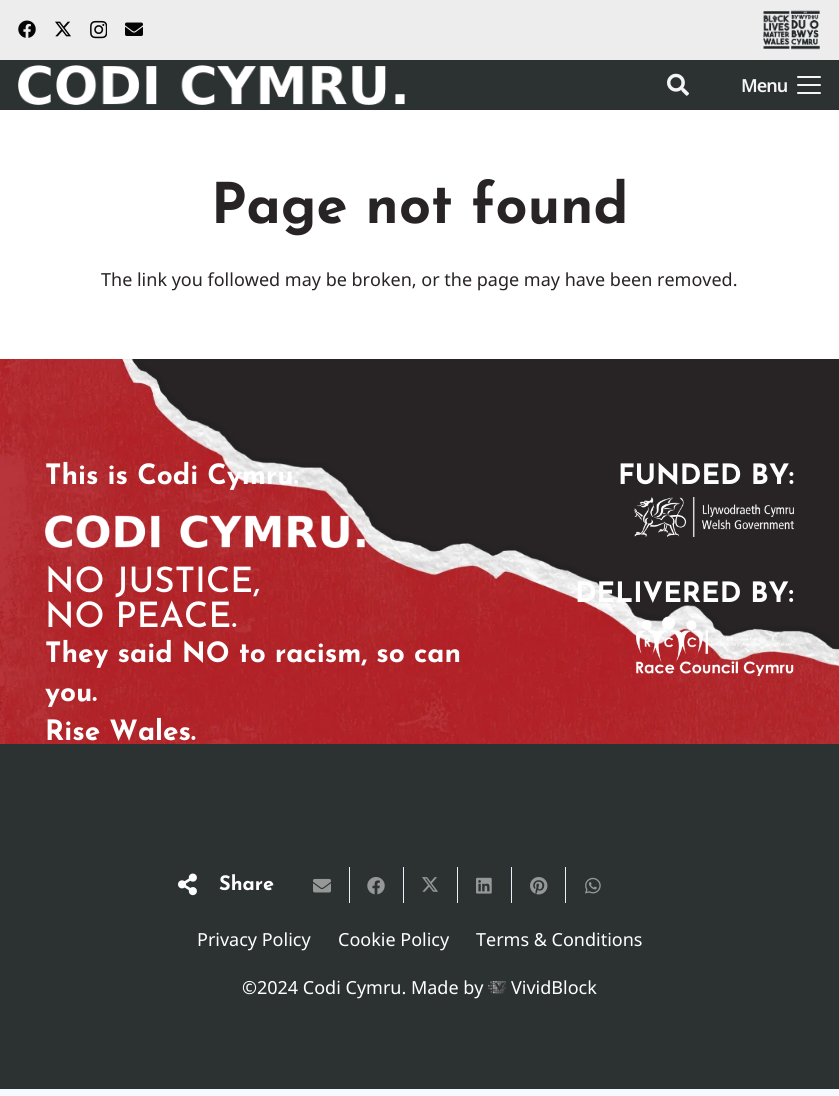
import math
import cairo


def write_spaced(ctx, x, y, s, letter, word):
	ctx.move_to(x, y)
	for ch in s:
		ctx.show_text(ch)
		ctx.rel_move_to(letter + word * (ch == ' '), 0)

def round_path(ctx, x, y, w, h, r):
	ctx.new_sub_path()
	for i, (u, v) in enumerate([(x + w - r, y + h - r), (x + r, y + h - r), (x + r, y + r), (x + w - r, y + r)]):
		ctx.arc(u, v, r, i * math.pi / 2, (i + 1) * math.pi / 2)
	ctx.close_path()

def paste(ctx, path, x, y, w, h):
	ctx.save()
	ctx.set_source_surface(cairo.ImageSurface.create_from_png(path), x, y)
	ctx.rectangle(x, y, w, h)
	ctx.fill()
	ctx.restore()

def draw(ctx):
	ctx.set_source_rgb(0.957, 0.98, 1)
	ctx.paint()
	ctx.set_source_rgb(1, 1, 1)
	ctx.rectangle(0, 110, 839, 249)
	ctx.fill()
	ctx.set_source_rgb(0.929, 0.929, 0.929)
	ctx.rectangle(0, 0, 839, 60)
	ctx.fill()
	paste(ctx, 'media/1.png', 18, 20, 18, 18)
	paste(ctx, 'media/2.png', 55, 21, 16, 16)
	paste(ctx, 'media/3.png', 90, 20, 17, 19)
	paste(ctx, 'media/4.png', 125, 22, 18, 14)
	paste(ctx, 'media/5.png', 763, 10, 57, 40)
	ctx.set_source_rgb(0.173, 0.196, 0.192)
	ctx.rectangle(0, 60, 839, 50)
	ctx.fill()
	paste(ctx, 'media/6.png', 18, 65, 387, 40)
	paste(ctx, 'media/7.png', 667, 73, 22, 23)
	ctx.select_font_face('Noto Sans SemiBold')
	ctx.set_font_size(18)
	ctx.set_source_rgb(0.961, 0.961, 0.961)
	write_spaced(ctx, 741, 92, 'Menu', -1, 0)
	round_path(ctx, 797, 84, 24, 2, 1)
	ctx.fill()
	round_path(ctx, 797, 76, 24, 2, 1)
	ctx.fill()
	round_path(ctx, 797, 92, 24, 2, 1)
	ctx.fill()
	ctx.select_font_face('Josefin Sans Thin')
	ctx.set_font_size(56)
	ctx.set_source_rgb(0.157, 0.141, 0.145)
	ctx.move_to(211, 223)
	ctx.show_text('Page not found')
	ctx.select_font_face('Noto Sans')
	ctx.set_font_size(18)
	ctx.move_to(101, 286)
	ctx.show_text('The link you followed may be broken, or the page may have been removed.')
	ctx.rectangle(131, 359, 708, 292)
	ctx.fill()
	paste(ctx, 'media/8.png', 0, 359, 839, 385)
	ctx.select_font_face('Josefin Sans Thin')
	ctx.set_font_size(28)
	ctx.set_source_rgb(1, 1, 1)
	ctx.move_to(45, 484)
	ctx.show_text('This is Codi Cymru.')
	paste(ctx, 'media/9.png', 45, 515, 320, 33)
	ctx.select_font_face('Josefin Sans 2 Thin')
	ctx.set_font_size(35)
	ctx.move_to(45, 592)
	ctx.show_text('NO JUSTICE,')
	ctx.move_to(45, 627)
	ctx.show_text('NO PEACE.')
	ctx.select_font_face('Josefin Sans Thin')
	ctx.set_font_size(28)
	for x, y, s in [
		(45, 662, 'They said NO to racism, so can'),
		(45, 701, 'you.'),
		(45, 740, 'Rise Wales.'),
		(618, 484, 'FUNDED BY:'),
	]:
		ctx.move_to(x, y)
		ctx.show_text(s)
	paste(ctx, 'media/10.png', 634, 497, 160, 40)
	ctx.move_to(575, 602)
	ctx.show_text('DELIVERED BY:')
	paste(ctx, 'media/11.png', 636, 616, 158, 60)
	ctx.set_source_rgb(0.173, 0.196, 0.192)
	ctx.rectangle(0, 744, 839, 345)
	ctx.fill()
	paste(ctx, 'media/12.png', 178, 873, 19, 23)
	ctx.set_font_size(20)
	ctx.set_source_rgb(1, 1, 1)
	ctx.move_to(219, 890)
	ctx.show_text('Share')
	ctx.set_source_rgb(0.902, 0.945, 0.98)
	ctx.rectangle(349, 867, 1, 36)
	ctx.fill()
	paste(ctx, 'media/13.png', 313, 878, 18, 15)
	ctx.rectangle(403, 867, 1, 36)
	ctx.fill()
	paste(ctx, 'media/14.png', 367, 877, 18, 18)
	ctx.rectangle(457, 867, 1, 36)
	ctx.fill()
	paste(ctx, 'media/15.png', 422, 877, 16, 15)
	ctx.rectangle(511, 867, 1, 36)
	ctx.fill()
	paste(ctx, 'media/16.png', 476, 877, 16, 17)
	ctx.rectangle(565, 867, 1, 36)
	ctx.fill()
	paste(ctx, 'media/17.png', 530, 877, 18, 18)
	paste(ctx, 'media/18.png', 585, 877, 16, 17)
	ctx.select_font_face('Noto Sans')
	ctx.set_font_size(18)
	ctx.set_source_rgb(1, 1, 1)
	for x, y, s in [
		(197, 946, 'Privacy Policy'),
		(338, 946, 'Cookie Policy'),
		(476, 946, 'Terms & Conditions'),
		(242, 994, '©2024 Codi Cymru. Made by'),
	]:
		ctx.move_to(x, y)
		ctx.show_text(s)
	paste(ctx, 'media/19.png', 488, 981, 18, 13)
	ctx.move_to(511, 994)
	ctx.show_text('VividBlock')


surface = cairo.ImageSurface(cairo.FORMAT_RGB24, 839, 1096)
ctx = cairo.Context(surface)
options = cairo.FontOptions()
options.set_hint_metrics(cairo.HINT_METRICS_OFF)
options.set_hint_style(cairo.HINT_STYLE_NONE)
ctx.set_font_options(options)
ctx.set_miter_limit(4)
draw(ctx)
surface.write_to_png('image.png')
